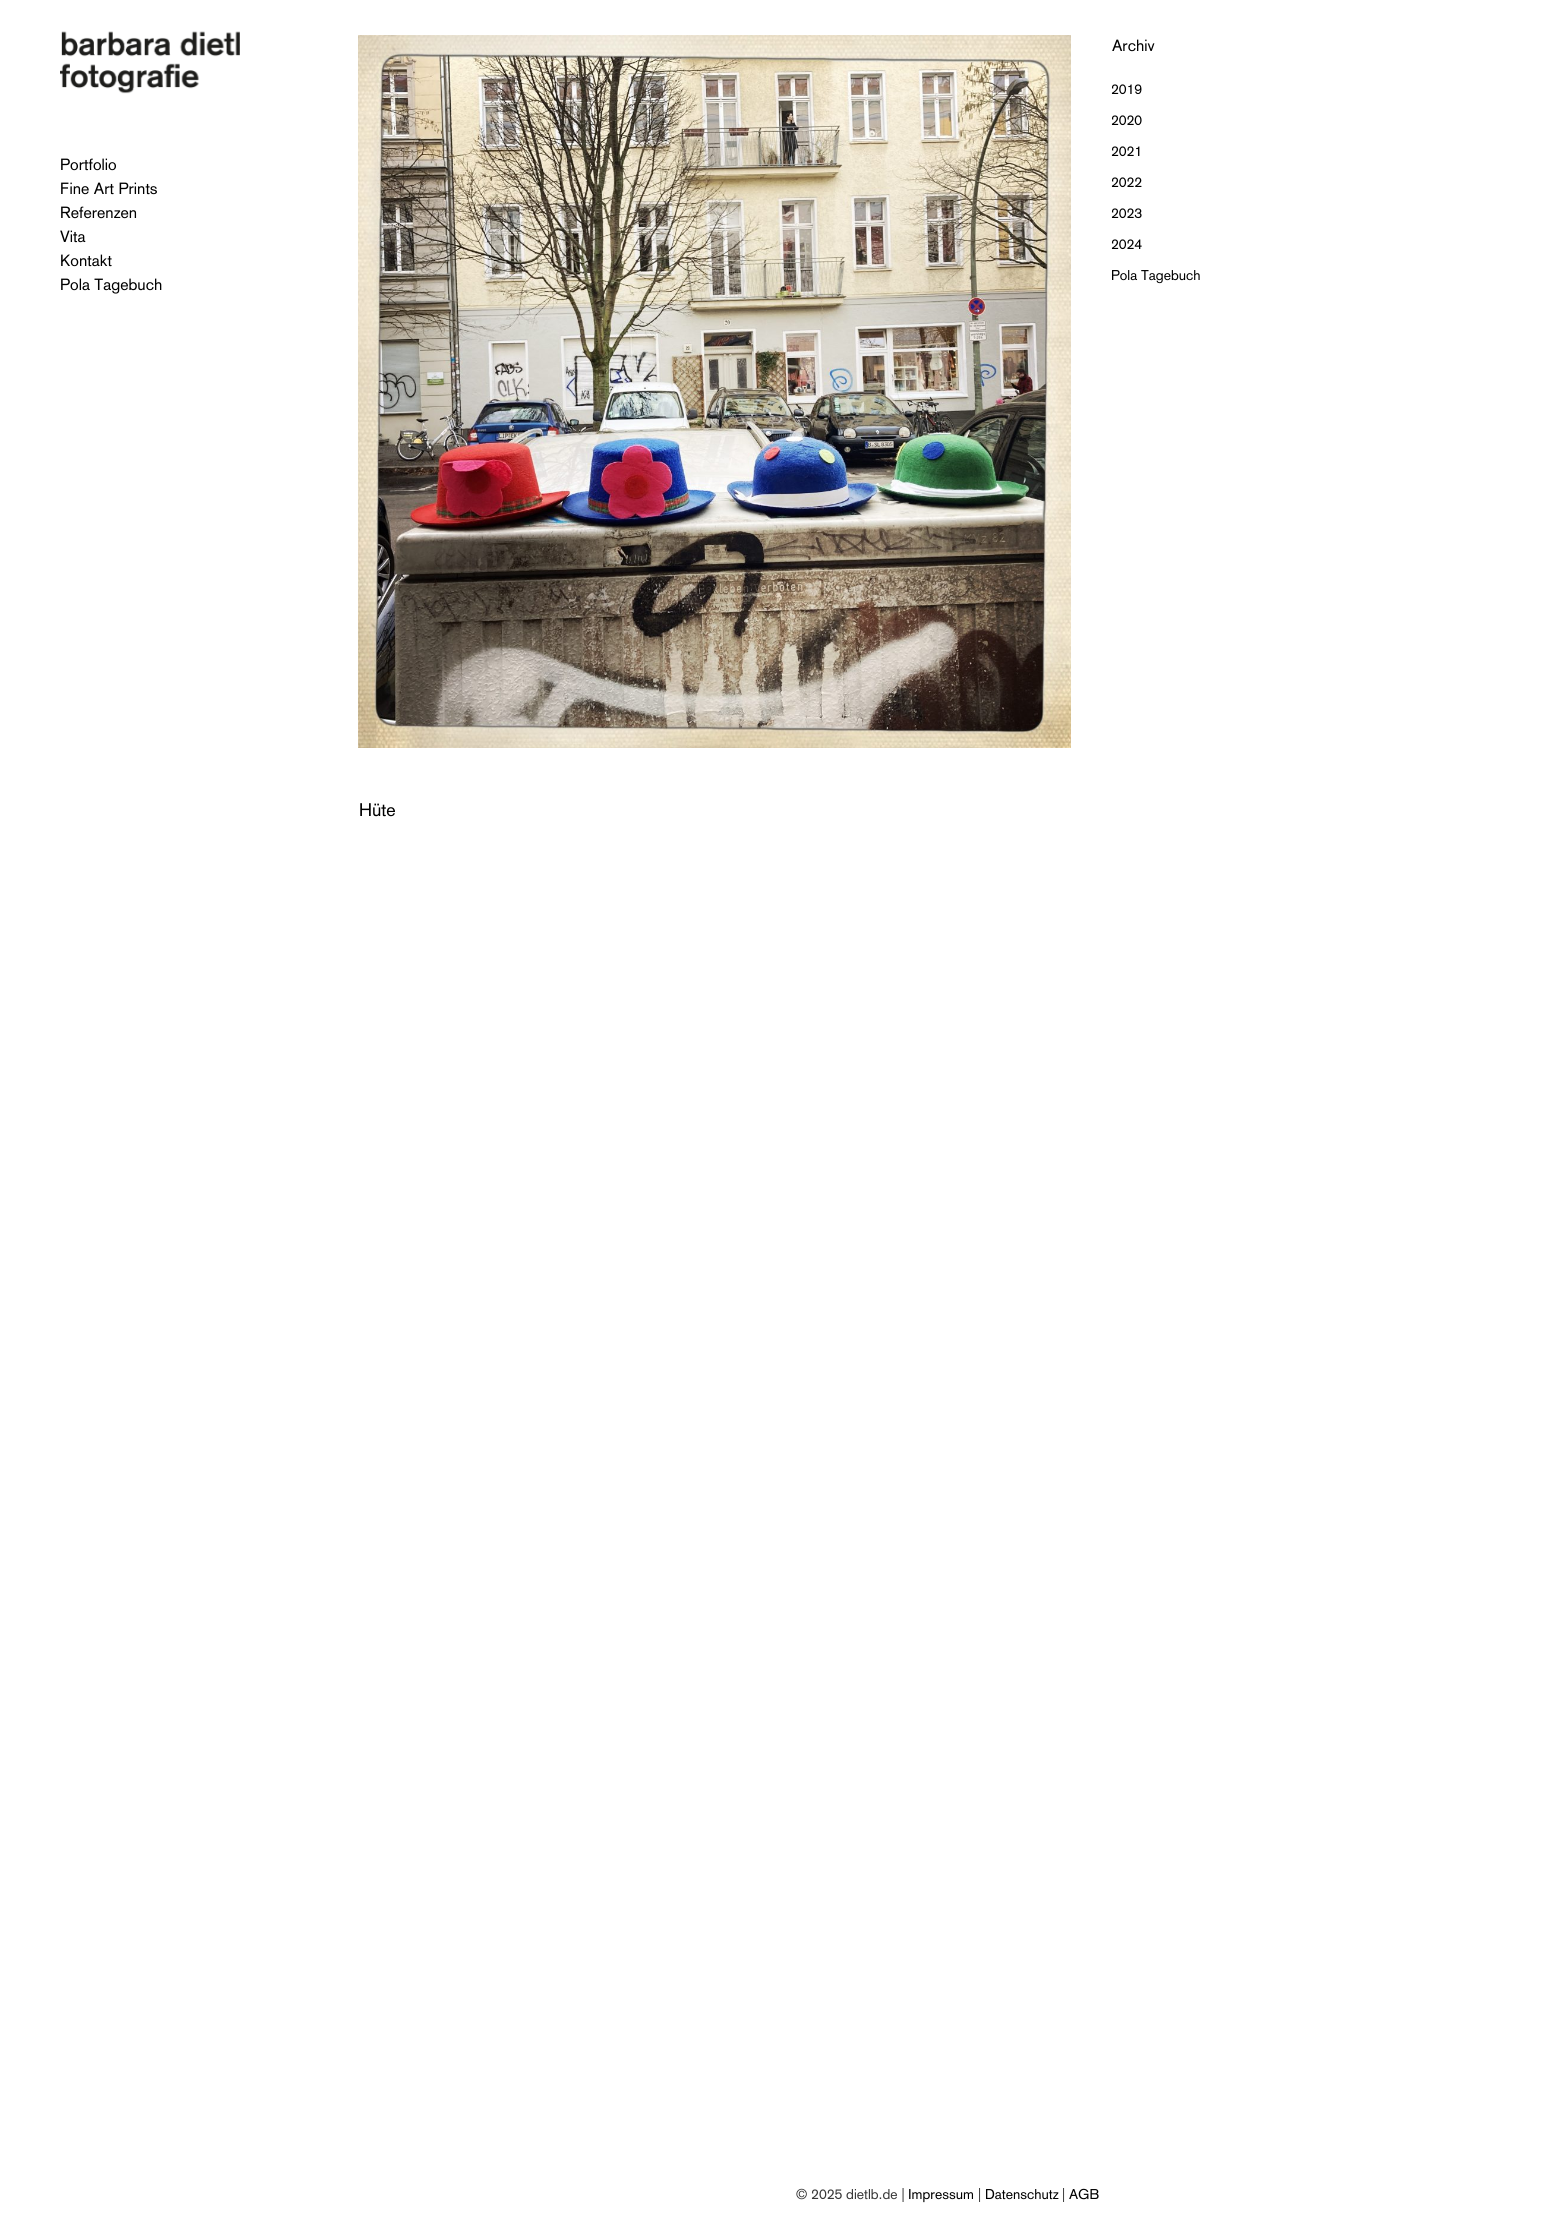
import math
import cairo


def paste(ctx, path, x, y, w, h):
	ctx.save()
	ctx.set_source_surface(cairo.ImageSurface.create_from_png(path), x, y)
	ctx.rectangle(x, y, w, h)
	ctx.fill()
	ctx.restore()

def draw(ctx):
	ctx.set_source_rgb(1, 1, 1)
	ctx.paint()
	paste(ctx, 'media/1.png', 60, 31, 180, 63)
	ctx.select_font_face('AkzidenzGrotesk')
	ctx.set_font_size(16)
	ctx.set_source_rgb(0, 0, 0)
	for x, y, s in [
		(60, 170, 'Portfolio'),
		(60, 194, 'Fine Art Prints'),
		(60, 218, 'Referenzen'),
		(60, 242, 'Vita'),
		(60, 266, 'Kontakt'),
		(60, 290, 'Pola Tagebuch'),
		(1112, 51, 'Archiv'),
	]:
		ctx.move_to(x, y)
		ctx.show_text(s)
	ctx.set_font_size(14)
	for x, y, s in [
		(1111, 94, '2019'),
		(1111, 125, '2020'),
		(1111, 156, '2021'),
		(1111, 187, '2022'),
		(1111, 218, '2023'),
		(1111, 249, '2024'),
		(1111, 280, 'Pola Tagebuch'),
	]:
		ctx.move_to(x, y)
		ctx.show_text(s)
	paste(ctx, 'media/2.png', 358, 35, 713, 713)
	ctx.set_font_size(18)
	ctx.move_to(359, 816)
	ctx.show_text('Hüte')
	ctx.set_font_size(14)
	ctx.set_source_rgb(0.224, 0.224, 0.224)
	ctx.move_to(796, 2199)
	ctx.show_text('© 2025 dietlb.de |')
	ctx.set_source_rgb(0, 0, 0)
	ctx.move_to(908, 2199)
	ctx.show_text('Impressum')
	ctx.set_source_rgb(0.224, 0.224, 0.224)
	ctx.move_to(978, 2199)
	ctx.show_text('|')
	ctx.set_source_rgb(0, 0, 0)
	ctx.move_to(985, 2199)
	ctx.show_text('Datenschutz')
	ctx.set_source_rgb(0.224, 0.224, 0.224)
	ctx.move_to(1062, 2199)
	ctx.show_text('|')
	ctx.set_source_rgb(0, 0, 0)
	ctx.move_to(1069, 2199)
	ctx.show_text('AGB')


surface = cairo.ImageSurface(cairo.FORMAT_RGB24, 1555, 2228)
ctx = cairo.Context(surface)
options = cairo.FontOptions()
options.set_hint_metrics(cairo.HINT_METRICS_OFF)
options.set_hint_style(cairo.HINT_STYLE_NONE)
ctx.set_font_options(options)
ctx.set_miter_limit(4)
draw(ctx)
surface.write_to_png('image.png')
